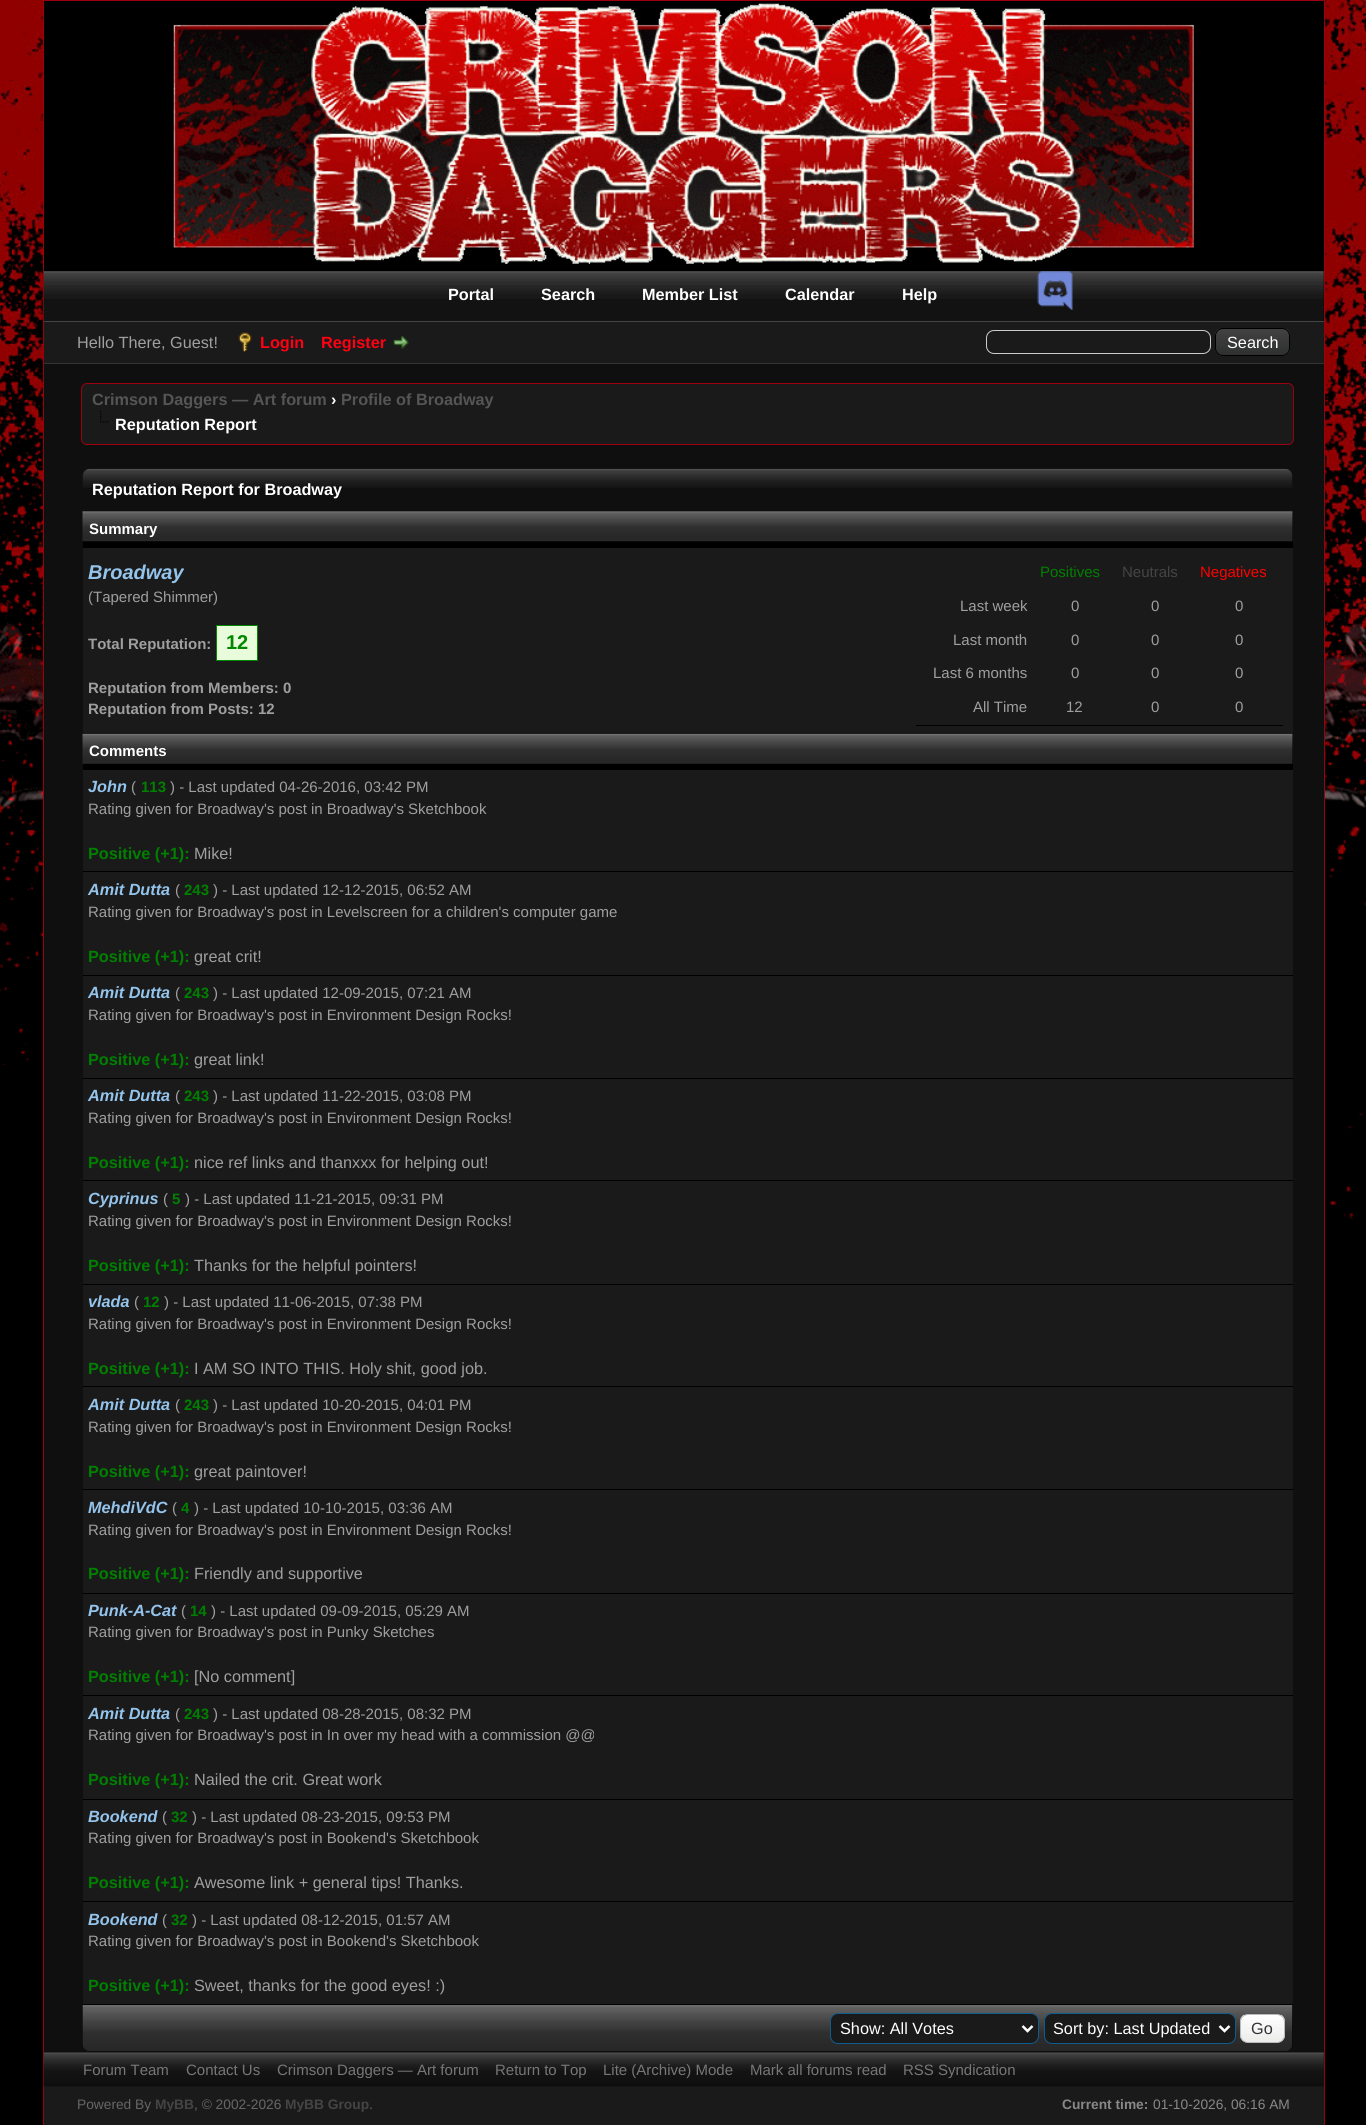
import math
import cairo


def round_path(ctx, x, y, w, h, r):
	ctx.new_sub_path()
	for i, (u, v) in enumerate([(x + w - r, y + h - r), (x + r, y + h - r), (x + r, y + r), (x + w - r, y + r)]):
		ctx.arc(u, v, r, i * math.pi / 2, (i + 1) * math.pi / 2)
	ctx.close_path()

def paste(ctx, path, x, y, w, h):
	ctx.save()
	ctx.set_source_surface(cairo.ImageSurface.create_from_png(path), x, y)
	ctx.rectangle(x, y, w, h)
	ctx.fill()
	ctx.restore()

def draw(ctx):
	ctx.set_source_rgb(0, 0, 0)
	ctx.paint()
	paste(ctx, 'media/1.png', 0, 0, 1366, 1219)
	ctx.rectangle(43.5, 0.5, 1281, 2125)
	ctx.set_source_rgb(0.612, 0, 0.047)
	ctx.set_line_width(1)
	ctx.stroke()
	ctx.set_source_rgb(0, 0, 0)
	ctx.rectangle(44, 1, 1280, 320)
	ctx.fill()
	paste(ctx, 'media/2.png', 173, 3, 1021, 261)
	paste(ctx, 'media/3.png', 43, 271, 1281, 51)
	ctx.select_font_face('Liberation Sans', cairo.FONT_SLANT_NORMAL, cairo.FONT_WEIGHT_BOLD)
	ctx.set_font_size(16.25)
	ctx.set_source_rgb(1, 1, 1)
	for x, y, s in [
		(448, 300, 'Portal'),
		(541, 300, 'Search'),
		(642, 300, 'Member List'),
		(785, 300, 'Calendar'),
		(902, 300, 'Help'),
	]:
		ctx.move_to(x, y)
		ctx.show_text(s)
	paste(ctx, 'media/4.png', 1037, 271, 36, 39)
	ctx.set_source_rgb(0.102, 0.102, 0.102)
	ctx.rectangle(44, 322, 1280, 41)
	ctx.fill()
	ctx.set_source_rgb(0.267, 0.267, 0.267)
	ctx.rectangle(44, 321, 1280, 1)
	ctx.fill()
	ctx.set_source_rgb(0.2, 0.2, 0.2)
	ctx.rectangle(44, 363, 1280, 1)
	ctx.fill()
	ctx.select_font_face('Liberation Sans')
	ctx.set_source_rgb(0.624, 0.624, 0.624)
	ctx.move_to(77, 348)
	ctx.show_text('Hello There, Guest!')
	paste(ctx, 'media/5.png', 238, 332, 14, 20)
	ctx.select_font_face('Liberation Sans', cairo.FONT_SLANT_NORMAL, cairo.FONT_WEIGHT_BOLD)
	ctx.set_source_rgb(1, 0, 0.075)
	ctx.move_to(260, 348)
	ctx.show_text('Login')
	ctx.move_to(321, 348)
	ctx.show_text('Register')
	paste(ctx, 'media/6.png', 393, 336, 16, 13)
	round_path(ctx, 986.5, 330.5, 224, 23, 7.5)
	ctx.set_source_rgb(0.8, 0.8, 0.8)
	ctx.stroke()
	paste(ctx, 'media/7.png', 1215, 328, 75, 28)
	round_path(ctx, 1215.5, 328.5, 74, 27, 7.5)
	ctx.set_source_rgb(0, 0, 0)
	ctx.stroke()
	ctx.select_font_face('Liberation Sans')
	ctx.set_source_rgb(1, 1, 1)
	ctx.move_to(1227, 348)
	ctx.show_text('Search')
	ctx.set_source_rgb(0.059, 0.059, 0.059)
	ctx.rectangle(44, 364, 1280, 1689)
	ctx.fill()
	ctx.set_source_rgb(0.102, 0.102, 0.102)
	round_path(ctx, 81.5, 383.5, 1212, 61, 5.5)
	ctx.fill_preserve()
	ctx.set_source_rgb(0.612, 0, 0.047)
	ctx.stroke()
	ctx.select_font_face('Liberation Sans', cairo.FONT_SLANT_NORMAL, cairo.FONT_WEIGHT_BOLD)
	ctx.set_source_rgb(0.333, 0.333, 0.333)
	ctx.move_to(92, 405)
	ctx.show_text('Crimson Daggers — Art forum')
	ctx.set_source_rgb(1, 1, 1)
	ctx.move_to(331, 405)
	ctx.show_text('›')
	ctx.set_source_rgb(0.333, 0.333, 0.333)
	ctx.move_to(341, 405)
	ctx.show_text('Profile of Broadway')
	paste(ctx, 'media/8.png', 100, 411, 11, 12)
	ctx.set_source_rgb(1, 1, 1)
	ctx.move_to(115, 430)
	ctx.show_text('Reputation Report')
	paste(ctx, 'media/9.png', 82, 468, 1211, 20)
	ctx.move_to(92, 495)
	ctx.show_text('Reputation Report for Broadway')
	ctx.set_source_rgb(0, 0, 0)
	ctx.rectangle(83, 511, 1210, 37)
	ctx.fill()
	paste(ctx, 'media/10.png', 82, 511, 1211, 31)
	ctx.set_font_size(15)
	ctx.set_source_rgb(1, 1, 1)
	ctx.move_to(89, 534)
	ctx.show_text('Summary')
	ctx.set_source_rgb(0.102, 0.102, 0.102)
	ctx.rectangle(83, 548, 1210, 185)
	ctx.fill()
	ctx.set_source_rgb(0, 0, 0)
	ctx.rectangle(83, 733, 1210, 37)
	ctx.fill()
	ctx.select_font_face('Liberation Sans', cairo.FONT_SLANT_ITALIC, cairo.FONT_WEIGHT_BOLD)
	ctx.set_font_size(20)
	ctx.set_source_rgb(0.58, 0.769, 0.925)
	ctx.move_to(88, 579)
	ctx.show_text('Broadway')
	ctx.select_font_face('Liberation Sans')
	ctx.set_font_size(15)
	ctx.set_source_rgb(0.624, 0.624, 0.624)
	ctx.move_to(88, 602)
	ctx.show_text('(Tapered Shimmer)')
	ctx.select_font_face('Liberation Sans', cairo.FONT_SLANT_NORMAL, cairo.FONT_WEIGHT_BOLD)
	ctx.move_to(88, 649)
	ctx.show_text('Total Reputation:')
	ctx.set_source_rgb(0.91, 0.988, 0.863)
	ctx.rectangle(216.5, 625.5, 41, 35)
	ctx.fill_preserve()
	ctx.set_source_rgb(0, 0.533, 0)
	ctx.stroke()
	ctx.set_font_size(20)
	ctx.move_to(226, 649)
	ctx.show_text('12')
	ctx.set_font_size(15)
	ctx.set_source_rgb(0.624, 0.624, 0.624)
	ctx.move_to(88, 693)
	ctx.show_text('Reputation from Members: 0')
	ctx.move_to(88, 714)
	ctx.show_text('Reputation from Posts: 12')
	ctx.set_source_rgb(0, 0, 0)
	ctx.rectangle(916, 725, 367, 1)
	ctx.fill()
	ctx.select_font_face('Liberation Sans')
	ctx.set_source_rgb(0, 0.502, 0)
	ctx.move_to(1040, 577)
	ctx.show_text('Positives')
	ctx.set_source_rgb(0.267, 0.267, 0.267)
	ctx.move_to(1122, 577)
	ctx.show_text('Neutrals')
	ctx.set_source_rgb(1, 0, 0)
	ctx.move_to(1200, 577)
	ctx.show_text('Negatives')
	ctx.set_source_rgb(0.624, 0.624, 0.624)
	for x, y, s in [
		(960, 611, 'Last week'),
		(1071, 611, '0'),
		(1151, 611, '0'),
		(1235, 611, '0'),
		(953, 645, 'Last month'),
		(1071, 645, '0'),
		(1151, 645, '0'),
		(1235, 645, '0'),
		(933, 678, 'Last 6 months'),
		(1071, 678, '0'),
		(1151, 678, '0'),
		(1235, 678, '0'),
		(973, 712, 'All Time'),
		(1066, 712, '12'),
		(1151, 712, '0'),
		(1235, 712, '0'),
	]:
		ctx.move_to(x, y)
		ctx.show_text(s)
	paste(ctx, 'media/11.png', 82, 733, 1211, 31)
	ctx.select_font_face('Liberation Sans', cairo.FONT_SLANT_NORMAL, cairo.FONT_WEIGHT_BOLD)
	ctx.set_source_rgb(1, 1, 1)
	ctx.move_to(89, 756)
	ctx.show_text('Comments')
	ctx.set_source_rgb(0.102, 0.102, 0.102)
	ctx.rectangle(83, 770, 1210, 205)
	ctx.fill()
	ctx.set_source_rgb(0, 0, 0)
	ctx.rectangle(83, 871, 1210, 1)
	ctx.fill()
	ctx.select_font_face('Liberation Sans', cairo.FONT_SLANT_ITALIC, cairo.FONT_WEIGHT_BOLD)
	ctx.set_font_size(16.25)
	ctx.set_source_rgb(0.58, 0.769, 0.925)
	ctx.move_to(88, 792)
	ctx.show_text('John')
	ctx.select_font_face('Liberation Sans')
	ctx.set_font_size(15)
	ctx.set_source_rgb(0.624, 0.624, 0.624)
	ctx.move_to(131, 792)
	ctx.show_text('(')
	ctx.select_font_face('Liberation Sans', cairo.FONT_SLANT_NORMAL, cairo.FONT_WEIGHT_BOLD)
	ctx.set_source_rgb(0, 0.502, 0)
	ctx.move_to(141, 792)
	ctx.show_text('113')
	ctx.select_font_face('Liberation Sans')
	ctx.set_source_rgb(0.624, 0.624, 0.624)
	ctx.move_to(170, 792)
	ctx.show_text(') - Last updated 04-26-2016, 03:42 PM')
	ctx.move_to(88, 814)
	ctx.show_text('Rating given for Broadway\'s post in Broadway\'s Sketchbook')
	ctx.select_font_face('Liberation Sans', cairo.FONT_SLANT_NORMAL, cairo.FONT_WEIGHT_BOLD)
	ctx.set_font_size(16.25)
	ctx.set_source_rgb(0, 0.502, 0)
	ctx.move_to(88, 859)
	ctx.show_text('Positive (+1):')
	ctx.select_font_face('Liberation Sans')
	ctx.set_source_rgb(0.624, 0.624, 0.624)
	ctx.move_to(194, 859)
	ctx.show_text('Mike!')
	ctx.set_source_rgb(0, 0, 0)
	ctx.rectangle(83, 975, 1210, 1)
	ctx.fill()
	ctx.select_font_face('Liberation Sans', cairo.FONT_SLANT_ITALIC, cairo.FONT_WEIGHT_BOLD)
	ctx.set_source_rgb(0.58, 0.769, 0.925)
	ctx.move_to(88, 895)
	ctx.show_text('Amit Dutta')
	ctx.select_font_face('Liberation Sans')
	ctx.set_font_size(15)
	ctx.set_source_rgb(0.624, 0.624, 0.624)
	ctx.move_to(175, 895)
	ctx.show_text('(')
	ctx.select_font_face('Liberation Sans', cairo.FONT_SLANT_NORMAL, cairo.FONT_WEIGHT_BOLD)
	ctx.set_source_rgb(0, 0.502, 0)
	ctx.move_to(184, 895)
	ctx.show_text('243')
	ctx.select_font_face('Liberation Sans')
	ctx.set_source_rgb(0.624, 0.624, 0.624)
	ctx.move_to(213, 895)
	ctx.show_text(') - Last updated 12-12-2015, 06:52 AM')
	ctx.move_to(88, 917)
	ctx.show_text('Rating given for Broadway\'s post in Levelscreen for a children\'s computer game')
	ctx.select_font_face('Liberation Sans', cairo.FONT_SLANT_NORMAL, cairo.FONT_WEIGHT_BOLD)
	ctx.set_font_size(16.25)
	ctx.set_source_rgb(0, 0.502, 0)
	ctx.move_to(88, 962)
	ctx.show_text('Positive (+1):')
	ctx.select_font_face('Liberation Sans')
	ctx.set_source_rgb(0.624, 0.624, 0.624)
	ctx.move_to(194, 962)
	ctx.show_text('great crit!')
	ctx.set_source_rgb(0.102, 0.102, 0.102)
	ctx.rectangle(83, 976, 1210, 102)
	ctx.fill()
	ctx.set_source_rgb(0, 0, 0)
	ctx.rectangle(83, 1078, 1210, 1)
	ctx.fill()
	ctx.select_font_face('Liberation Sans', cairo.FONT_SLANT_ITALIC, cairo.FONT_WEIGHT_BOLD)
	ctx.set_source_rgb(0.58, 0.769, 0.925)
	ctx.move_to(88, 998)
	ctx.show_text('Amit Dutta')
	ctx.select_font_face('Liberation Sans')
	ctx.set_font_size(15)
	ctx.set_source_rgb(0.624, 0.624, 0.624)
	ctx.move_to(175, 998)
	ctx.show_text('(')
	ctx.select_font_face('Liberation Sans', cairo.FONT_SLANT_NORMAL, cairo.FONT_WEIGHT_BOLD)
	ctx.set_source_rgb(0, 0.502, 0)
	ctx.move_to(184, 998)
	ctx.show_text('243')
	ctx.select_font_face('Liberation Sans')
	ctx.set_source_rgb(0.624, 0.624, 0.624)
	ctx.move_to(213, 998)
	ctx.show_text(') - Last updated 12-09-2015, 07:21 AM')
	ctx.move_to(88, 1020)
	ctx.show_text('Rating given for Broadway\'s post in Environment Design Rocks!')
	ctx.select_font_face('Liberation Sans', cairo.FONT_SLANT_NORMAL, cairo.FONT_WEIGHT_BOLD)
	ctx.set_font_size(16.25)
	ctx.set_source_rgb(0, 0.502, 0)
	ctx.move_to(88, 1065)
	ctx.show_text('Positive (+1):')
	ctx.select_font_face('Liberation Sans')
	ctx.set_source_rgb(0.624, 0.624, 0.624)
	ctx.move_to(194, 1065)
	ctx.show_text('great link!')
	ctx.set_source_rgb(0.102, 0.102, 0.102)
	ctx.rectangle(83, 1079, 1210, 101)
	ctx.fill()
	ctx.set_source_rgb(0, 0, 0)
	ctx.rectangle(83, 1180, 1210, 1)
	ctx.fill()
	ctx.select_font_face('Liberation Sans', cairo.FONT_SLANT_ITALIC, cairo.FONT_WEIGHT_BOLD)
	ctx.set_source_rgb(0.58, 0.769, 0.925)
	ctx.move_to(88, 1101)
	ctx.show_text('Amit Dutta')
	ctx.select_font_face('Liberation Sans')
	ctx.set_font_size(15)
	ctx.set_source_rgb(0.624, 0.624, 0.624)
	ctx.move_to(175, 1101)
	ctx.show_text('(')
	ctx.select_font_face('Liberation Sans', cairo.FONT_SLANT_NORMAL, cairo.FONT_WEIGHT_BOLD)
	ctx.set_source_rgb(0, 0.502, 0)
	ctx.move_to(184, 1101)
	ctx.show_text('243')
	ctx.select_font_face('Liberation Sans')
	ctx.set_source_rgb(0.624, 0.624, 0.624)
	ctx.move_to(213, 1101)
	ctx.show_text(') - Last updated 11-22-2015, 03:08 PM')
	ctx.move_to(88, 1123)
	ctx.show_text('Rating given for Broadway\'s post in Environment Design Rocks!')
	ctx.select_font_face('Liberation Sans', cairo.FONT_SLANT_NORMAL, cairo.FONT_WEIGHT_BOLD)
	ctx.set_font_size(16.25)
	ctx.set_source_rgb(0, 0.502, 0)
	ctx.move_to(88, 1168)
	ctx.show_text('Positive (+1):')
	ctx.select_font_face('Liberation Sans')
	ctx.set_source_rgb(0.624, 0.624, 0.624)
	ctx.move_to(194, 1168)
	ctx.show_text('nice ref links and thanxxx for helping out!')
	ctx.set_source_rgb(0.102, 0.102, 0.102)
	ctx.rectangle(83, 1181, 1210, 103)
	ctx.fill()
	ctx.set_source_rgb(0, 0, 0)
	ctx.rectangle(83, 1284, 1210, 1)
	ctx.fill()
	ctx.select_font_face('Liberation Sans', cairo.FONT_SLANT_ITALIC, cairo.FONT_WEIGHT_BOLD)
	ctx.set_source_rgb(0.58, 0.769, 0.925)
	ctx.move_to(88, 1204)
	ctx.show_text('Cyprinus')
	ctx.select_font_face('Liberation Sans')
	ctx.set_font_size(15)
	ctx.set_source_rgb(0.624, 0.624, 0.624)
	ctx.move_to(163, 1204)
	ctx.show_text('(')
	ctx.select_font_face('Liberation Sans', cairo.FONT_SLANT_NORMAL, cairo.FONT_WEIGHT_BOLD)
	ctx.set_source_rgb(0, 0.502, 0)
	ctx.move_to(172, 1204)
	ctx.show_text('5')
	ctx.select_font_face('Liberation Sans')
	ctx.set_source_rgb(0.624, 0.624, 0.624)
	ctx.move_to(185, 1204)
	ctx.show_text(') - Last updated 11-21-2015, 09:31 PM')
	ctx.move_to(88, 1226)
	ctx.show_text('Rating given for Broadway\'s post in Environment Design Rocks!')
	ctx.select_font_face('Liberation Sans', cairo.FONT_SLANT_NORMAL, cairo.FONT_WEIGHT_BOLD)
	ctx.set_font_size(16.25)
	ctx.set_source_rgb(0, 0.502, 0)
	ctx.move_to(88, 1271)
	ctx.show_text('Positive (+1):')
	ctx.select_font_face('Liberation Sans')
	ctx.set_source_rgb(0.624, 0.624, 0.624)
	ctx.move_to(194, 1271)
	ctx.show_text('Thanks for the helpful pointers!')
	ctx.set_source_rgb(0.102, 0.102, 0.102)
	ctx.rectangle(83, 1285, 1210, 204)
	ctx.fill()
	ctx.set_source_rgb(0, 0, 0)
	ctx.rectangle(83, 1386, 1210, 1)
	ctx.fill()
	ctx.select_font_face('Liberation Sans', cairo.FONT_SLANT_ITALIC, cairo.FONT_WEIGHT_BOLD)
	ctx.set_source_rgb(0.58, 0.769, 0.925)
	ctx.move_to(88, 1307)
	ctx.show_text('vlada')
	ctx.select_font_face('Liberation Sans')
	ctx.set_font_size(15)
	ctx.set_source_rgb(0.624, 0.624, 0.624)
	ctx.move_to(134, 1307)
	ctx.show_text('(')
	ctx.select_font_face('Liberation Sans', cairo.FONT_SLANT_NORMAL, cairo.FONT_WEIGHT_BOLD)
	ctx.set_source_rgb(0, 0.502, 0)
	ctx.move_to(143, 1307)
	ctx.show_text('12')
	ctx.select_font_face('Liberation Sans')
	ctx.set_source_rgb(0.624, 0.624, 0.624)
	ctx.move_to(164, 1307)
	ctx.show_text(') - Last updated 11-06-2015, 07:38 PM')
	ctx.move_to(88, 1329)
	ctx.show_text('Rating given for Broadway\'s post in Environment Design Rocks!')
	ctx.select_font_face('Liberation Sans', cairo.FONT_SLANT_NORMAL, cairo.FONT_WEIGHT_BOLD)
	ctx.set_font_size(16.25)
	ctx.set_source_rgb(0, 0.502, 0)
	ctx.move_to(88, 1374)
	ctx.show_text('Positive (+1):')
	ctx.select_font_face('Liberation Sans')
	ctx.set_source_rgb(0.624, 0.624, 0.624)
	ctx.move_to(194, 1374)
	ctx.show_text('I AM SO INTO THIS. Holy shit, good job.')
	ctx.set_source_rgb(0, 0, 0)
	ctx.rectangle(83, 1489, 1210, 1)
	ctx.fill()
	ctx.select_font_face('Liberation Sans', cairo.FONT_SLANT_ITALIC, cairo.FONT_WEIGHT_BOLD)
	ctx.set_source_rgb(0.58, 0.769, 0.925)
	ctx.move_to(88, 1410)
	ctx.show_text('Amit Dutta')
	ctx.select_font_face('Liberation Sans')
	ctx.set_font_size(15)
	ctx.set_source_rgb(0.624, 0.624, 0.624)
	ctx.move_to(175, 1410)
	ctx.show_text('(')
	ctx.select_font_face('Liberation Sans', cairo.FONT_SLANT_NORMAL, cairo.FONT_WEIGHT_BOLD)
	ctx.set_source_rgb(0, 0.502, 0)
	ctx.move_to(184, 1410)
	ctx.show_text('243')
	ctx.select_font_face('Liberation Sans')
	ctx.set_source_rgb(0.624, 0.624, 0.624)
	ctx.move_to(213, 1410)
	ctx.show_text(') - Last updated 10-20-2015, 04:01 PM')
	ctx.move_to(88, 1432)
	ctx.show_text('Rating given for Broadway\'s post in Environment Design Rocks!')
	ctx.select_font_face('Liberation Sans', cairo.FONT_SLANT_NORMAL, cairo.FONT_WEIGHT_BOLD)
	ctx.set_font_size(16.25)
	ctx.set_source_rgb(0, 0.502, 0)
	ctx.move_to(88, 1477)
	ctx.show_text('Positive (+1):')
	ctx.select_font_face('Liberation Sans')
	ctx.set_source_rgb(0.624, 0.624, 0.624)
	ctx.move_to(194, 1477)
	ctx.show_text('great paintover!')
	ctx.set_source_rgb(0.102, 0.102, 0.102)
	ctx.rectangle(83, 1490, 1210, 103)
	ctx.fill()
	ctx.set_source_rgb(0, 0, 0)
	ctx.rectangle(83, 1593, 1210, 1)
	ctx.fill()
	ctx.select_font_face('Liberation Sans', cairo.FONT_SLANT_ITALIC, cairo.FONT_WEIGHT_BOLD)
	ctx.set_source_rgb(0.58, 0.769, 0.925)
	ctx.move_to(88, 1513)
	ctx.show_text('MehdiVdC')
	ctx.select_font_face('Liberation Sans')
	ctx.set_font_size(15)
	ctx.set_source_rgb(0.624, 0.624, 0.624)
	ctx.move_to(172, 1513)
	ctx.show_text('(')
	ctx.select_font_face('Liberation Sans', cairo.FONT_SLANT_NORMAL, cairo.FONT_WEIGHT_BOLD)
	ctx.set_source_rgb(0, 0.502, 0)
	ctx.move_to(181, 1513)
	ctx.show_text('4')
	ctx.select_font_face('Liberation Sans')
	ctx.set_source_rgb(0.624, 0.624, 0.624)
	ctx.move_to(194, 1513)
	ctx.show_text(') - Last updated 10-10-2015, 03:36 AM')
	ctx.move_to(88, 1535)
	ctx.show_text('Rating given for Broadway\'s post in Environment Design Rocks!')
	ctx.select_font_face('Liberation Sans', cairo.FONT_SLANT_NORMAL, cairo.FONT_WEIGHT_BOLD)
	ctx.set_font_size(16.25)
	ctx.set_source_rgb(0, 0.502, 0)
	ctx.move_to(88, 1579)
	ctx.show_text('Positive (+1):')
	ctx.select_font_face('Liberation Sans')
	ctx.set_source_rgb(0.624, 0.624, 0.624)
	ctx.move_to(194, 1579)
	ctx.show_text('Friendly and supportive')
	ctx.set_source_rgb(0.102, 0.102, 0.102)
	ctx.rectangle(83, 1594, 1210, 101)
	ctx.fill()
	ctx.set_source_rgb(0, 0, 0)
	ctx.rectangle(83, 1695, 1210, 1)
	ctx.fill()
	ctx.select_font_face('Liberation Sans', cairo.FONT_SLANT_ITALIC, cairo.FONT_WEIGHT_BOLD)
	ctx.set_source_rgb(0.58, 0.769, 0.925)
	ctx.move_to(88, 1616)
	ctx.show_text('Punk-A-Cat')
	ctx.select_font_face('Liberation Sans')
	ctx.set_font_size(15)
	ctx.set_source_rgb(0.624, 0.624, 0.624)
	ctx.move_to(181, 1616)
	ctx.show_text('(')
	ctx.select_font_face('Liberation Sans', cairo.FONT_SLANT_NORMAL, cairo.FONT_WEIGHT_BOLD)
	ctx.set_source_rgb(0, 0.502, 0)
	ctx.move_to(190, 1616)
	ctx.show_text('14')
	ctx.select_font_face('Liberation Sans')
	ctx.set_source_rgb(0.624, 0.624, 0.624)
	ctx.move_to(211, 1616)
	ctx.show_text(') - Last updated 09-09-2015, 05:29 AM')
	ctx.move_to(88, 1637)
	ctx.show_text('Rating given for Broadway\'s post in Punky Sketches')
	ctx.select_font_face('Liberation Sans', cairo.FONT_SLANT_NORMAL, cairo.FONT_WEIGHT_BOLD)
	ctx.set_font_size(16.25)
	ctx.set_source_rgb(0, 0.502, 0)
	ctx.move_to(88, 1682)
	ctx.show_text('Positive (+1):')
	ctx.select_font_face('Liberation Sans')
	ctx.set_source_rgb(0.624, 0.624, 0.624)
	ctx.move_to(194, 1682)
	ctx.show_text('[No comment]')
	ctx.set_source_rgb(0.102, 0.102, 0.102)
	ctx.rectangle(83, 1696, 1210, 103)
	ctx.fill()
	ctx.set_source_rgb(0, 0, 0)
	ctx.rectangle(83, 1799, 1210, 1)
	ctx.fill()
	ctx.select_font_face('Liberation Sans', cairo.FONT_SLANT_ITALIC, cairo.FONT_WEIGHT_BOLD)
	ctx.set_source_rgb(0.58, 0.769, 0.925)
	ctx.move_to(88, 1719)
	ctx.show_text('Amit Dutta')
	ctx.select_font_face('Liberation Sans')
	ctx.set_font_size(15)
	ctx.set_source_rgb(0.624, 0.624, 0.624)
	ctx.move_to(175, 1719)
	ctx.show_text('(')
	ctx.select_font_face('Liberation Sans', cairo.FONT_SLANT_NORMAL, cairo.FONT_WEIGHT_BOLD)
	ctx.set_source_rgb(0, 0.502, 0)
	ctx.move_to(184, 1719)
	ctx.show_text('243')
	ctx.select_font_face('Liberation Sans')
	ctx.set_source_rgb(0.624, 0.624, 0.624)
	ctx.move_to(213, 1719)
	ctx.show_text(') - Last updated 08-28-2015, 08:32 PM')
	ctx.move_to(88, 1740)
	ctx.show_text('Rating given for Broadway\'s post in In over my head with a commission @@')
	ctx.select_font_face('Liberation Sans', cairo.FONT_SLANT_NORMAL, cairo.FONT_WEIGHT_BOLD)
	ctx.set_font_size(16.25)
	ctx.set_source_rgb(0, 0.502, 0)
	ctx.move_to(88, 1785)
	ctx.show_text('Positive (+1):')
	ctx.select_font_face('Liberation Sans')
	ctx.set_source_rgb(0.624, 0.624, 0.624)
	ctx.move_to(194, 1785)
	ctx.show_text('Nailed the crit. Great work')
	ctx.set_source_rgb(0.102, 0.102, 0.102)
	ctx.rectangle(83, 1800, 1210, 204)
	ctx.fill()
	ctx.set_source_rgb(0, 0, 0)
	ctx.rectangle(83, 1901, 1210, 1)
	ctx.fill()
	ctx.select_font_face('Liberation Sans', cairo.FONT_SLANT_ITALIC, cairo.FONT_WEIGHT_BOLD)
	ctx.set_source_rgb(0.58, 0.769, 0.925)
	ctx.move_to(88, 1822)
	ctx.show_text('Bookend')
	ctx.select_font_face('Liberation Sans')
	ctx.set_font_size(15)
	ctx.set_source_rgb(0.624, 0.624, 0.624)
	ctx.move_to(162, 1822)
	ctx.show_text('(')
	ctx.select_font_face('Liberation Sans', cairo.FONT_SLANT_NORMAL, cairo.FONT_WEIGHT_BOLD)
	ctx.set_source_rgb(0, 0.502, 0)
	ctx.move_to(171, 1822)
	ctx.show_text('32')
	ctx.select_font_face('Liberation Sans')
	ctx.set_source_rgb(0.624, 0.624, 0.624)
	ctx.move_to(192, 1822)
	ctx.show_text(') - Last updated 08-23-2015, 09:53 PM')
	ctx.move_to(88, 1843)
	ctx.show_text('Rating given for Broadway\'s post in Bookend\'s Sketchbook')
	ctx.select_font_face('Liberation Sans', cairo.FONT_SLANT_NORMAL, cairo.FONT_WEIGHT_BOLD)
	ctx.set_font_size(16.25)
	ctx.set_source_rgb(0, 0.502, 0)
	ctx.move_to(88, 1888)
	ctx.show_text('Positive (+1):')
	ctx.select_font_face('Liberation Sans')
	ctx.set_source_rgb(0.624, 0.624, 0.624)
	ctx.move_to(194, 1888)
	ctx.show_text('Awesome link + general tips! Thanks.')
	ctx.set_source_rgb(0, 0, 0)
	ctx.rectangle(83, 2004, 1210, 1)
	ctx.fill()
	ctx.select_font_face('Liberation Sans', cairo.FONT_SLANT_ITALIC, cairo.FONT_WEIGHT_BOLD)
	ctx.set_source_rgb(0.58, 0.769, 0.925)
	ctx.move_to(88, 1925)
	ctx.show_text('Bookend')
	ctx.select_font_face('Liberation Sans')
	ctx.set_font_size(15)
	ctx.set_source_rgb(0.624, 0.624, 0.624)
	ctx.move_to(162, 1925)
	ctx.show_text('(')
	ctx.select_font_face('Liberation Sans', cairo.FONT_SLANT_NORMAL, cairo.FONT_WEIGHT_BOLD)
	ctx.set_source_rgb(0, 0.502, 0)
	ctx.move_to(171, 1925)
	ctx.show_text('32')
	ctx.select_font_face('Liberation Sans')
	ctx.set_source_rgb(0.624, 0.624, 0.624)
	ctx.move_to(192, 1925)
	ctx.show_text(') - Last updated 08-12-2015, 01:57 AM')
	ctx.move_to(88, 1946)
	ctx.show_text('Rating given for Broadway\'s post in Bookend\'s Sketchbook')
	ctx.select_font_face('Liberation Sans', cairo.FONT_SLANT_NORMAL, cairo.FONT_WEIGHT_BOLD)
	ctx.set_font_size(16.25)
	ctx.set_source_rgb(0, 0.502, 0)
	ctx.move_to(88, 1991)
	ctx.show_text('Positive (+1):')
	ctx.select_font_face('Liberation Sans')
	ctx.set_source_rgb(0.624, 0.624, 0.624)
	ctx.move_to(194, 1991)
	ctx.show_text('Sweet, thanks for the good eyes! :)')
	ctx.set_source_rgb(0, 0, 0)
	ctx.new_path()
	ctx.move_to(83, 2005)
	ctx.line_to(1293, 2005)
	ctx.line_to(1293, 2043)
	ctx.curve_to(1293, 2047.5, 1289.5, 2051, 1285, 2051)
	ctx.line_to(91, 2051)
	ctx.curve_to(86.5, 2051, 83, 2047.5, 83, 2043)
	ctx.close_path()
	ctx.fill()
	paste(ctx, 'media/12.png', 82, 2005, 1211, 46)
	ctx.set_source_rgb(0.102, 0.102, 0.102)
	round_path(ctx, 830.5, 2013.5, 208, 30, 7.5)
	ctx.fill_preserve()
	ctx.set_source_rgb(0.059, 0.361, 0.557)
	ctx.stroke()
	ctx.new_path()
	ctx.move_to(1022.5, 2026)
	ctx.line_to(1027.5, 2031)
	ctx.line_to(1032.5, 2026)
	ctx.set_source_rgb(1, 1, 1)
	ctx.set_line_width(2.5)
	ctx.stroke()
	ctx.move_to(840, 2034)
	ctx.show_text('Show: All Votes')
	ctx.set_source_rgb(0.102, 0.102, 0.102)
	round_path(ctx, 1044.5, 2013.5, 191, 30, 7.5)
	ctx.fill_preserve()
	ctx.set_source_rgb(0.059, 0.361, 0.557)
	ctx.set_line_width(1)
	ctx.stroke()
	ctx.new_path()
	ctx.move_to(1219.5, 2026)
	ctx.line_to(1224.5, 2031)
	ctx.line_to(1229.5, 2026)
	ctx.set_source_rgb(1, 1, 1)
	ctx.set_line_width(2.5)
	ctx.stroke()
	ctx.move_to(1053, 2034)
	ctx.show_text('Sort by: Last Updated')
	paste(ctx, 'media/13.png', 1240, 2015, 45, 28)
	round_path(ctx, 1240.5, 2014.5, 44, 28, 7.5)
	ctx.set_source_rgb(0.733, 0.733, 0.733)
	ctx.set_line_width(1)
	ctx.stroke()
	ctx.set_source_rgb(0.2, 0.2, 0.2)
	ctx.move_to(1251, 2034)
	ctx.show_text('Go')
	ctx.set_source_rgb(0.102, 0.102, 0.102)
	ctx.rectangle(44, 2053, 1280, 72)
	ctx.fill()
	paste(ctx, 'media/14.png', 43, 2052, 1281, 35)
	ctx.set_font_size(15)
	ctx.set_source_rgb(0.467, 0.467, 0.467)
	for x, y, s in [
		(83, 2075, 'Forum Team'),
		(186, 2075, 'Contact Us'),
		(277, 2075, 'Crimson Daggers — Art forum'),
		(495, 2075, 'Return to Top'),
		(603, 2075, 'Lite (Archive) Mode'),
		(750, 2075, 'Mark all forums read'),
		(903, 2075, 'RSS Syndication'),
	]:
		ctx.move_to(x, y)
		ctx.show_text(s)
	ctx.set_font_size(13.75)
	ctx.set_source_rgb(0.4, 0.4, 0.4)
	ctx.move_to(77, 2109)
	ctx.show_text('Powered By')
	ctx.select_font_face('Liberation Sans', cairo.FONT_SLANT_NORMAL, cairo.FONT_WEIGHT_BOLD)
	ctx.set_source_rgb(0.267, 0.267, 0.267)
	ctx.move_to(155, 2109)
	ctx.show_text('MyBB')
	ctx.select_font_face('Liberation Sans')
	ctx.set_source_rgb(0.4, 0.4, 0.4)
	ctx.move_to(194, 2109)
	ctx.show_text(', © 2002-2026')
	ctx.select_font_face('Liberation Sans', cairo.FONT_SLANT_NORMAL, cairo.FONT_WEIGHT_BOLD)
	ctx.set_source_rgb(0.267, 0.267, 0.267)
	ctx.move_to(285, 2109)
	ctx.show_text('MyBB Group')
	ctx.select_font_face('Liberation Sans')
	ctx.set_source_rgb(0.4, 0.4, 0.4)
	ctx.move_to(369, 2109)
	ctx.show_text('.')
	ctx.select_font_face('Liberation Sans', cairo.FONT_SLANT_NORMAL, cairo.FONT_WEIGHT_BOLD)
	ctx.set_source_rgb(0.533, 0.533, 0.533)
	ctx.move_to(1062, 2109)
	ctx.show_text('Current time:')
	ctx.select_font_face('Liberation Sans')
	ctx.move_to(1153, 2109)
	ctx.show_text('01-10-2026, 06:16 AM')


surface = cairo.ImageSurface(cairo.FORMAT_RGB24, 1366, 2125)
ctx = cairo.Context(surface)
options = cairo.FontOptions()
options.set_hint_metrics(cairo.HINT_METRICS_OFF)
options.set_hint_style(cairo.HINT_STYLE_NONE)
ctx.set_font_options(options)
ctx.set_miter_limit(4)
draw(ctx)
surface.write_to_png('image.png')
